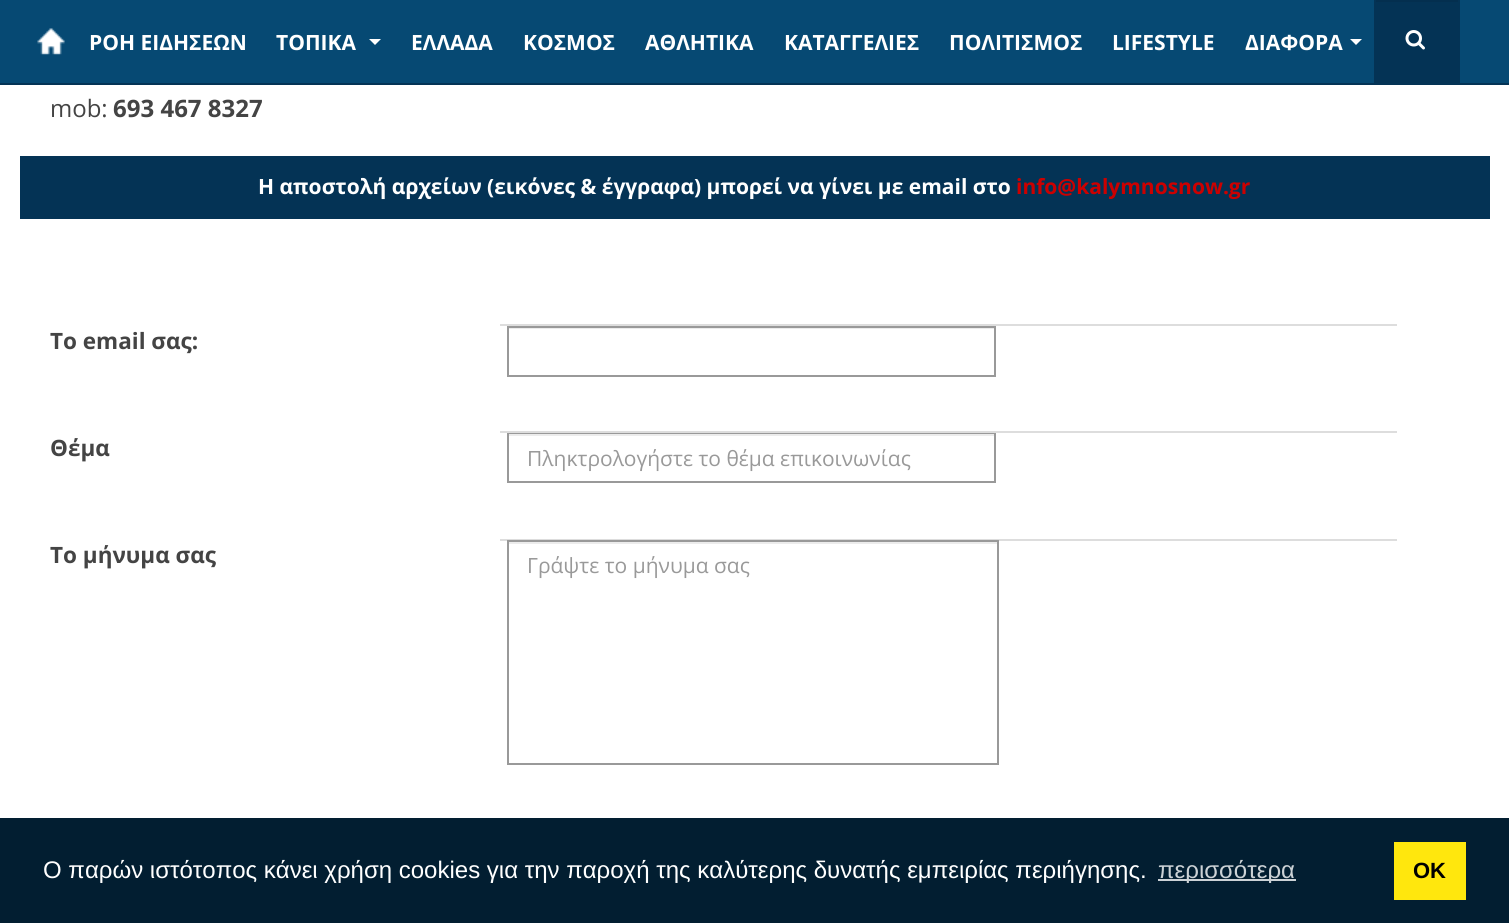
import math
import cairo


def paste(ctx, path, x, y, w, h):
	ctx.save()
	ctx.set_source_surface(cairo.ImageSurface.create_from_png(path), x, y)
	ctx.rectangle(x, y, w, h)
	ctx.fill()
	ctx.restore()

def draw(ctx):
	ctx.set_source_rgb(1, 1, 1)
	ctx.paint()
	ctx.set_source_rgb(0.024, 0.286, 0.451)
	ctx.rectangle(0, 0, 1509, 83)
	ctx.fill()
	ctx.set_source_rgb(0.016, 0.2, 0.333)
	ctx.rectangle(0, 83, 1509, 2)
	ctx.fill()
	paste(ctx, 'media/1.png', 37, 28, 28, 27)
	ctx.rectangle(1374, 0, 86, 83)
	ctx.fill()
	ctx.set_source_rgb(0.016, 0.184, 0.31)
	ctx.rectangle(1376, 0, 82, 2)
	ctx.fill()
	paste(ctx, 'media/2.png', 1405, 30, 20, 20)
	ctx.select_font_face('Open Sans', cairo.FONT_SLANT_NORMAL, cairo.FONT_WEIGHT_BOLD)
	ctx.set_font_size(21)
	ctx.set_source_rgb(1, 1, 1)
	ctx.move_to(89, 50)
	ctx.show_text('ΡΟΗ ΕΙΔΗΣΕΩΝ')
	ctx.move_to(276, 50)
	ctx.show_text('ΤΟΠΙΚΑ')
	ctx.new_path()
	ctx.move_to(369, 39)
	ctx.line_to(381, 39)
	ctx.line_to(375, 45)
	ctx.close_path()
	ctx.fill()
	for x, y, s in [
		(411, 50, 'ΕΛΛΑΔΑ'),
		(523, 50, 'ΚΟΣΜΟΣ'),
		(645, 50, 'ΑΘΛΗΤΙΚΑ'),
		(784, 50, 'ΚΑΤΑΓΓΕΛΙΕΣ'),
		(949, 50, 'ΠΟΛΙΤΙΣΜΟΣ'),
		(1112, 50, 'LIFESTYLE'),
		(1245, 50, 'ΔΙΑΦΟΡΑ'),
	]:
		ctx.move_to(x, y)
		ctx.show_text(s)
	ctx.new_path()
	ctx.move_to(1350, 39)
	ctx.line_to(1362, 39)
	ctx.line_to(1356, 45)
	ctx.close_path()
	ctx.fill()
	ctx.select_font_face('Open Sans')
	ctx.set_font_size(24)
	ctx.set_source_rgb(0.267, 0.267, 0.267)
	ctx.move_to(50, 117)
	ctx.show_text('mob:')
	ctx.select_font_face('Open Sans', cairo.FONT_SLANT_NORMAL, cairo.FONT_WEIGHT_BOLD)
	ctx.move_to(113, 117)
	ctx.show_text('693 467 8327')
	ctx.set_source_rgb(0.016, 0.2, 0.333)
	ctx.rectangle(20, 156, 1470, 63)
	ctx.fill()
	ctx.set_font_size(21)
	ctx.set_source_rgb(1, 1, 1)
	ctx.move_to(258, 194)
	ctx.show_text('Η αποστολή αρχείων (εικόνες & έγγραφα) μπορεί να γίνει με email στο')
	ctx.set_source_rgb(0.8, 0, 0)
	ctx.move_to(1016, 194)
	ctx.show_text('info@kalymnosnow.gr')
	ctx.set_font_size(22.5)
	ctx.set_source_rgb(0.267, 0.267, 0.267)
	ctx.move_to(50, 349)
	ctx.show_text('Το email σας:')
	ctx.set_source_rgb(0.867, 0.867, 0.867)
	ctx.rectangle(500, 324, 897, 2)
	ctx.fill()
	ctx.set_source_rgb(0.925, 0.925, 0.925)
	ctx.rectangle(509, 328, 486, 1)
	ctx.fill()
	ctx.rectangle(508, 327, 487, 49)
	ctx.set_source_rgb(0.6, 0.6, 0.6)
	ctx.stroke()
	ctx.set_source_rgb(0.267, 0.267, 0.267)
	ctx.move_to(50, 456)
	ctx.show_text('Θέμα')
	ctx.set_source_rgb(0.925, 0.925, 0.925)
	ctx.rectangle(509, 434, 486, 2)
	ctx.fill()
	ctx.rectangle(508, 433, 487, 49)
	ctx.set_source_rgb(0.6, 0.6, 0.6)
	ctx.stroke()
	ctx.set_source_rgb(0.867, 0.867, 0.867)
	ctx.rectangle(500, 431, 897, 2)
	ctx.fill()
	ctx.select_font_face('Open Sans')
	ctx.set_font_size(21)
	ctx.set_source_rgb(0.6, 0.6, 0.6)
	ctx.move_to(527, 466)
	ctx.show_text('Πληκτρολογήστε το θέμα επικοινωνίας')
	ctx.select_font_face('Open Sans', cairo.FONT_SLANT_NORMAL, cairo.FONT_WEIGHT_BOLD)
	ctx.set_font_size(22.5)
	ctx.set_source_rgb(0.267, 0.267, 0.267)
	ctx.move_to(50, 563)
	ctx.show_text('Το μήνυμα σας')
	ctx.set_source_rgb(0.867, 0.867, 0.867)
	ctx.rectangle(500, 539, 897, 2)
	ctx.fill()
	ctx.set_source_rgb(0.925, 0.925, 0.925)
	ctx.rectangle(509, 542, 489, 2)
	ctx.fill()
	ctx.rectangle(508, 541, 490, 223)
	ctx.set_source_rgb(0.6, 0.6, 0.6)
	ctx.stroke()
	ctx.select_font_face('Open Sans')
	ctx.set_font_size(21)
	ctx.move_to(527, 573)
	ctx.show_text('Γράψτε το μήνυμα σας')
	ctx.set_source_rgb(0.008, 0.118, 0.192)
	ctx.rectangle(0, 818, 1509, 105)
	ctx.fill()
	ctx.select_font_face('Liberation Sans')
	ctx.set_font_size(24)
	ctx.set_source_rgb(1, 1, 1)
	ctx.move_to(43, 878)
	ctx.show_text('Ο παρών ιστότοπος κάνει χρήση cookies για την παροχή της καλύτερης δυνατής εμπειρίας περιήγησης.')
	ctx.set_source_rgb(0.8, 0.824, 0.839)
	ctx.rectangle(1158, 879, 138, 2)
	ctx.fill()
	ctx.move_to(1158, 878)
	ctx.show_text('περισσότερα')
	ctx.set_source_rgb(1, 0.906, 0.051)
	ctx.rectangle(1394, 842, 72, 58)
	ctx.fill()
	ctx.select_font_face('Liberation Sans', cairo.FONT_SLANT_NORMAL, cairo.FONT_WEIGHT_BOLD)
	ctx.set_font_size(22)
	ctx.set_source_rgb(0, 0, 0)
	ctx.move_to(1413, 878)
	ctx.show_text('OK')


surface = cairo.ImageSurface(cairo.FORMAT_RGB24, 1509, 923)
ctx = cairo.Context(surface)
options = cairo.FontOptions()
options.set_hint_metrics(cairo.HINT_METRICS_OFF)
options.set_hint_style(cairo.HINT_STYLE_NONE)
ctx.set_font_options(options)
ctx.set_miter_limit(4)
draw(ctx)
surface.write_to_png('image.png')
